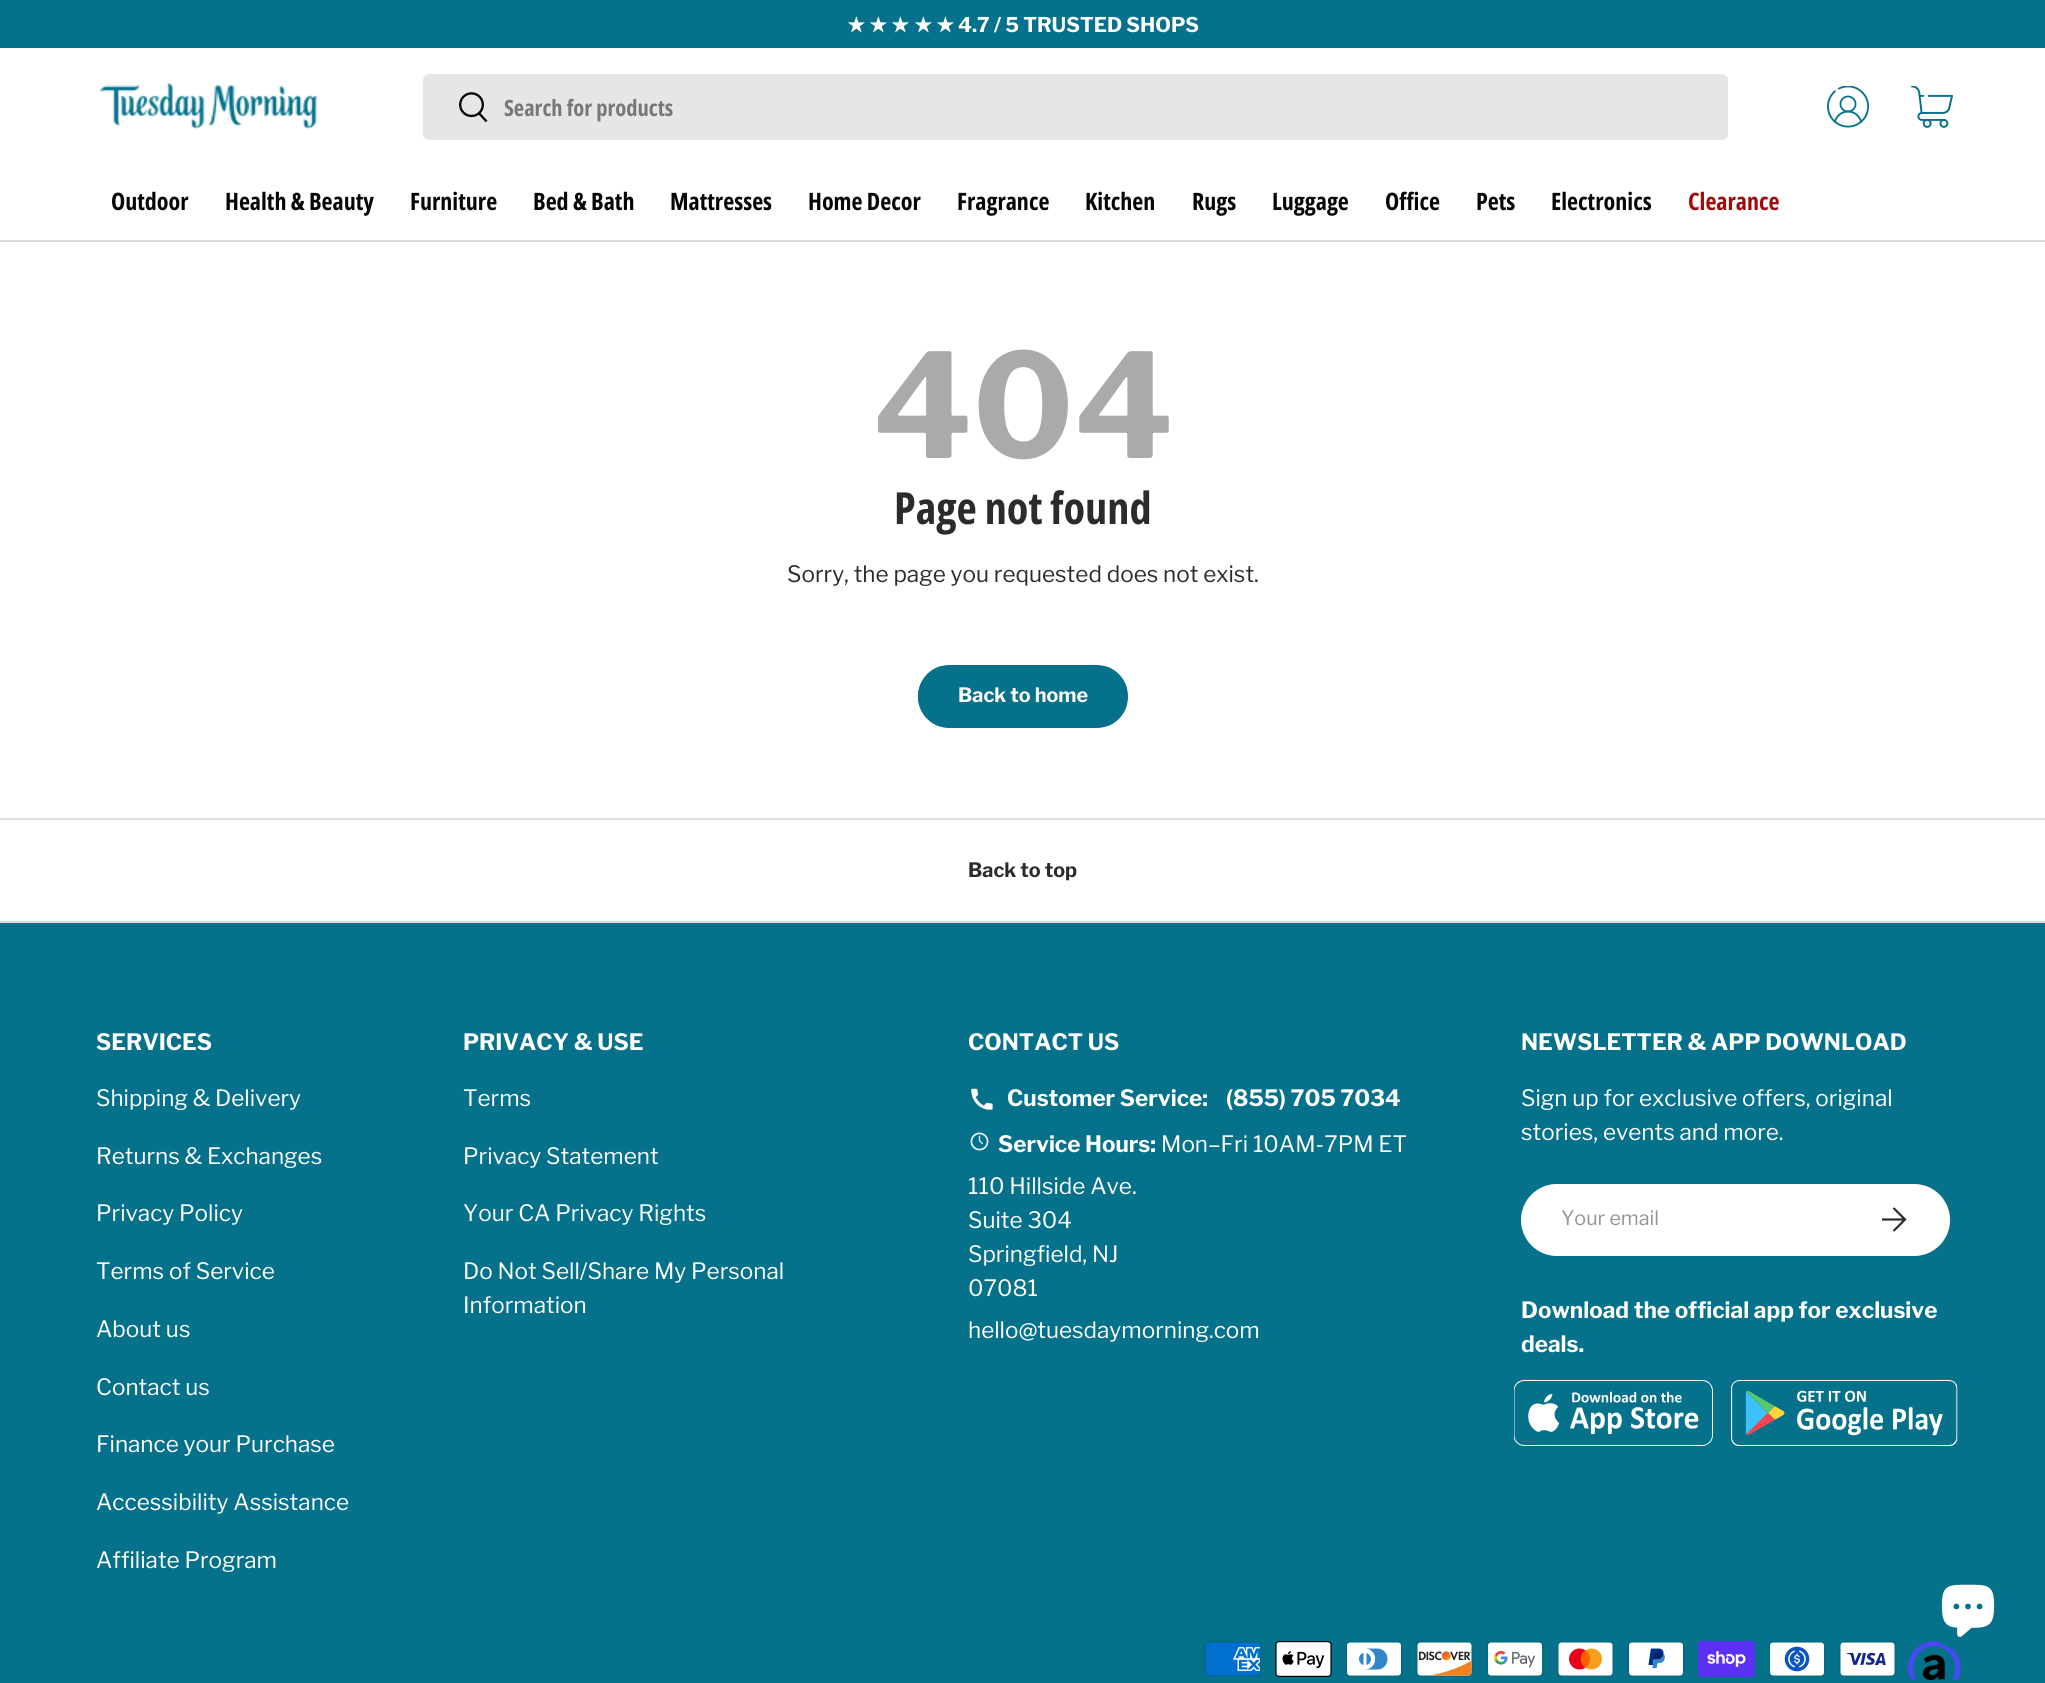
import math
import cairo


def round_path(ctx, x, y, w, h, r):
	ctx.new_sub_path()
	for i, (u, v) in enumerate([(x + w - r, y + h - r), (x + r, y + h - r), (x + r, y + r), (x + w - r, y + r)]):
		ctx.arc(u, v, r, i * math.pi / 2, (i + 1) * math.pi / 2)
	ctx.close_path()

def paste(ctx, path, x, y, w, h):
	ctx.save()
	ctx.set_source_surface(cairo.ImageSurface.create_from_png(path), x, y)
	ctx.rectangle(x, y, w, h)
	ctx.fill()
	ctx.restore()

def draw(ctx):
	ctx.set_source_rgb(1, 1, 1)
	ctx.paint()
	ctx.set_source_rgb(0.02, 0.443, 0.541)
	ctx.rectangle(0, 0, 2045, 48)
	ctx.fill()
	ctx.select_font_face('DejaVu Sans', cairo.FONT_SLANT_NORMAL, cairo.FONT_WEIGHT_BOLD)
	ctx.set_font_size(20.25)
	ctx.set_source_rgb(1, 1, 1)
	for x, y, s in [
		(847, 32, '★'),
		(869, 32, '★'),
		(891, 32, '★'),
		(914, 32, '★'),
		(936, 32, '★'),
	]:
		ctx.move_to(x, y)
		ctx.show_text(s)
	ctx.select_font_face('Libre Franklin', cairo.FONT_SLANT_NORMAL, cairo.FONT_WEIGHT_BOLD)
	ctx.move_to(958, 32)
	ctx.show_text('4.7 / 5 TRUSTED SHOPS')
	ctx.set_source_rgb(0.855, 0.855, 0.855)
	ctx.rectangle(0, 240, 2045, 2)
	ctx.fill()
	paste(ctx, 'media/1.png', 100, 82, 218, 48)
	ctx.set_source_rgb(0.902, 0.902, 0.902)
	round_path(ctx, 423, 74, 1305, 66, 6)
	ctx.fill()
	paste(ctx, 'media/2.png', 459, 92, 29, 31)
	ctx.select_font_face('Open Sans Condensed', cairo.FONT_SLANT_NORMAL, cairo.FONT_WEIGHT_BOLD)
	ctx.set_font_size(22.5)
	ctx.set_source_rgb(0.467, 0.467, 0.467)
	ctx.move_to(504, 116)
	ctx.show_text('Search for products')
	paste(ctx, 'media/3.png', 1827, 86, 42, 42)
	paste(ctx, 'media/4.png', 1911, 86, 42, 42)
	ctx.set_font_size(24)
	ctx.set_source_rgb(0.027, 0.027, 0.027)
	for x, y, s in [
		(111, 210, 'Outdoor'),
		(225, 210, 'Health & Beauty'),
		(410, 210, 'Furniture'),
		(533, 210, 'Bed & Bath'),
		(670, 210, 'Mattresses'),
		(808, 210, 'Home Decor'),
		(957, 210, 'Fragrance'),
		(1085, 210, 'Kitchen'),
		(1192, 210, 'Rugs'),
		(1272, 210, 'Luggage'),
		(1385, 210, 'Office'),
		(1476, 210, 'Pets'),
		(1551, 210, 'Electronics'),
	]:
		ctx.move_to(x, y)
		ctx.show_text(s)
	ctx.set_source_rgb(0.639, 0.039, 0.039)
	ctx.move_to(1688, 210)
	ctx.show_text('Clearance')
	ctx.select_font_face('Libre Franklin', cairo.FONT_SLANT_NORMAL, cairo.FONT_WEIGHT_BOLD)
	ctx.set_font_size(144)
	ctx.set_source_rgb(0.667, 0.667, 0.667)
	ctx.move_to(873, 458)
	ctx.show_text('404')
	ctx.select_font_face('Open Sans Condensed', cairo.FONT_SLANT_NORMAL, cairo.FONT_WEIGHT_BOLD)
	ctx.set_font_size(44.25)
	ctx.set_source_rgb(0.165, 0.169, 0.165)
	ctx.move_to(894, 524)
	ctx.show_text('Page not found')
	ctx.select_font_face('Libre Franklin')
	ctx.set_font_size(22.5)
	ctx.move_to(787, 582)
	ctx.show_text('Sorry, the page you requested does not exist.')
	ctx.save()
	round_path(ctx, 918, 665, 210, 63, 31.5)
	ctx.clip()
	gradient = cairo.LinearGradient(517, 621, 1115, 771)
	gradient.add_color_stop_rgba(0.6, 0.18, 0.565, 0.659, 1)
	gradient.add_color_stop_rgba(0.6, 0.02, 0.443, 0.541, 1)
	gradient.add_color_stop_rgba(1, 0.02, 0.443, 0.541, 1)
	ctx.set_source(gradient)
	ctx.rectangle(918, 666, 209, 60)
	ctx.fill()
	ctx.restore()
	round_path(ctx, 919, 666, 208, 61, 30.5)
	ctx.set_source_rgb(0.02, 0.443, 0.541)
	ctx.stroke()
	ctx.select_font_face('Libre Franklin', cairo.FONT_SLANT_NORMAL, cairo.FONT_WEIGHT_BOLD)
	ctx.set_font_size(19.75)
	ctx.set_source_rgb(1, 1, 1)
	ctx.move_to(958, 702)
	ctx.show_text('Back to home')
	ctx.set_source_rgb(0.875, 0.875, 0.875)
	ctx.rectangle(0, 818, 2045, 2)
	ctx.fill()
	ctx.rectangle(0, 921, 2045, 2)
	ctx.fill()
	ctx.set_source_rgb(0.165, 0.169, 0.165)
	ctx.move_to(968, 877)
	ctx.show_text('Back to top')
	ctx.set_source_rgb(0.02, 0.443, 0.541)
	ctx.rectangle(0, 923, 2045, 760)
	ctx.fill()
	ctx.set_font_size(22.5)
	ctx.set_source_rgb(1, 1, 1)
	ctx.move_to(96, 1050)
	ctx.show_text('SERVICES')
	ctx.select_font_face('Libre Franklin')
	for x, y, s in [
		(96, 1106, 'Shipping & Delivery'),
		(96, 1164, 'Returns & Exchanges'),
		(96, 1221, 'Privacy Policy'),
		(96, 1279, 'Terms of Service'),
		(96, 1337, 'About us'),
		(96, 1395, 'Contact us'),
		(96, 1452, 'Finance your Purchase'),
		(96, 1510, 'Accessibility Assistance'),
		(96, 1568, 'Affiliate Program'),
	]:
		ctx.move_to(x, y)
		ctx.show_text(s)
	ctx.select_font_face('Libre Franklin', cairo.FONT_SLANT_NORMAL, cairo.FONT_WEIGHT_BOLD)
	ctx.move_to(463, 1050)
	ctx.show_text('PRIVACY & USE')
	ctx.select_font_face('Libre Franklin')
	for x, y, s in [
		(463, 1106, 'Terms'),
		(463, 1164, 'Privacy Statement'),
		(463, 1221, 'Your CA Privacy Rights'),
		(463, 1279, 'Do Not Sell/Share My Personal'),
		(463, 1313, 'Information'),
	]:
		ctx.move_to(x, y)
		ctx.show_text(s)
	ctx.select_font_face('Libre Franklin', cairo.FONT_SLANT_NORMAL, cairo.FONT_WEIGHT_BOLD)
	ctx.move_to(968, 1050)
	ctx.show_text('CONTACT US')
	paste(ctx, 'media/5.png', 971, 1088, 22, 22)
	ctx.move_to(1007, 1106)
	ctx.show_text('Customer Service:')
	ctx.move_to(1226, 1106)
	ctx.show_text('(855) 705 7034')
	paste(ctx, 'media/6.png', 970, 1132, 19, 19)
	ctx.move_to(998, 1152)
	ctx.show_text('Service Hours:')
	ctx.select_font_face('Libre Franklin')
	for x, y, s in [
		(1161, 1152, 'Mon–Fri 10AM-7PM ET'),
		(968, 1194, '110 Hillside Ave.'),
		(968, 1228, 'Suite 304'),
		(968, 1262, 'Springfield, NJ'),
		(968, 1296, '07081'),
		(968, 1338, 'hello@tuesdaymorning.com'),
	]:
		ctx.move_to(x, y)
		ctx.show_text(s)
	ctx.select_font_face('Libre Franklin', cairo.FONT_SLANT_NORMAL, cairo.FONT_WEIGHT_BOLD)
	ctx.move_to(1521, 1050)
	ctx.show_text('NEWSLETTER & APP DOWNLOAD')
	ctx.select_font_face('Libre Franklin')
	ctx.move_to(1521, 1106)
	ctx.show_text('Sign up for exclusive offers, original')
	ctx.move_to(1521, 1140)
	ctx.show_text('stories, events and more.')
	round_path(ctx, 1521, 1184, 429, 72, 36)
	ctx.fill()
	round_path(ctx, 1522, 1185, 427, 70, 35)
	ctx.set_source_rgba(1, 1, 1, 0.2)
	ctx.stroke()
	ctx.set_font_size(19.75)
	ctx.set_source_rgb(0.584, 0.584, 0.584)
	ctx.move_to(1561, 1225)
	ctx.show_text('Your email')
	ctx.new_path()
	ctx.move_to(1882, 1219.5)
	ctx.line_to(1904, 1219.5)
	ctx.move_to(1893.5, 1208)
	ctx.line_to(1905, 1219.5)
	ctx.line_to(1893.5, 1231)
	ctx.set_source_rgb(0.165, 0.169, 0.165)
	ctx.set_line_width(2.2)
	ctx.stroke()
	ctx.select_font_face('Libre Franklin', cairo.FONT_SLANT_NORMAL, cairo.FONT_WEIGHT_BOLD)
	ctx.set_font_size(22.5)
	ctx.set_source_rgb(1, 1, 1)
	ctx.move_to(1521, 1318)
	ctx.show_text('Download the official app for exclusive')
	ctx.move_to(1521, 1352)
	ctx.show_text('deals.')
	paste(ctx, 'media/7.png', 1514, 1380, 199, 66)
	paste(ctx, 'media/8.png', 1731, 1380, 227, 66)
	paste(ctx, 'media/9.png', 1204, 1641, 58, 36)
	paste(ctx, 'media/10.png', 1275, 1641, 57, 36)
	paste(ctx, 'media/11.png', 1345, 1641, 58, 36)
	paste(ctx, 'media/12.png', 1416, 1641, 57, 36)
	paste(ctx, 'media/13.png', 1486, 1641, 58, 36)
	paste(ctx, 'media/14.png', 1557, 1641, 57, 36)
	paste(ctx, 'media/15.png', 1627, 1641, 58, 36)
	paste(ctx, 'media/16.png', 1698, 1641, 57, 36)
	paste(ctx, 'media/17.png', 1769, 1641, 56, 36)
	paste(ctx, 'media/18.png', 1839, 1641, 57, 36)
	paste(ctx, 'media/19.png', 1908, 1641, 53, 39)
	ctx.set_source_rgb(0.02, 0.443, 0.541)
	ctx.arc(1968, 1607, 45, 0, 2 * math.pi)
	ctx.fill()
	paste(ctx, 'media/20.png', 1941, 1584, 54, 53)


surface = cairo.ImageSurface(cairo.FORMAT_RGB24, 2045, 1683)
ctx = cairo.Context(surface)
options = cairo.FontOptions()
options.set_hint_metrics(cairo.HINT_METRICS_OFF)
options.set_hint_style(cairo.HINT_STYLE_NONE)
ctx.set_font_options(options)
ctx.set_miter_limit(4)
draw(ctx)
surface.write_to_png('image.png')
